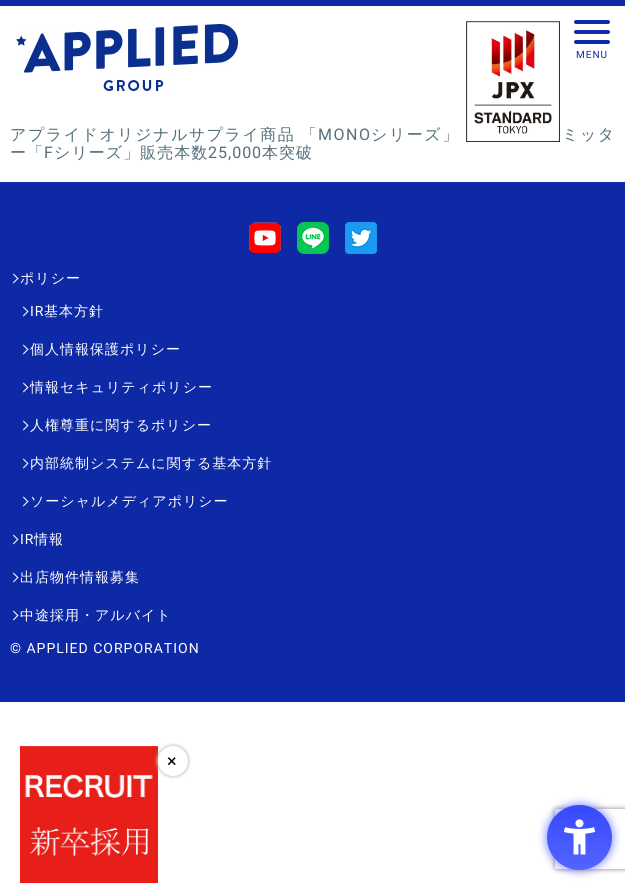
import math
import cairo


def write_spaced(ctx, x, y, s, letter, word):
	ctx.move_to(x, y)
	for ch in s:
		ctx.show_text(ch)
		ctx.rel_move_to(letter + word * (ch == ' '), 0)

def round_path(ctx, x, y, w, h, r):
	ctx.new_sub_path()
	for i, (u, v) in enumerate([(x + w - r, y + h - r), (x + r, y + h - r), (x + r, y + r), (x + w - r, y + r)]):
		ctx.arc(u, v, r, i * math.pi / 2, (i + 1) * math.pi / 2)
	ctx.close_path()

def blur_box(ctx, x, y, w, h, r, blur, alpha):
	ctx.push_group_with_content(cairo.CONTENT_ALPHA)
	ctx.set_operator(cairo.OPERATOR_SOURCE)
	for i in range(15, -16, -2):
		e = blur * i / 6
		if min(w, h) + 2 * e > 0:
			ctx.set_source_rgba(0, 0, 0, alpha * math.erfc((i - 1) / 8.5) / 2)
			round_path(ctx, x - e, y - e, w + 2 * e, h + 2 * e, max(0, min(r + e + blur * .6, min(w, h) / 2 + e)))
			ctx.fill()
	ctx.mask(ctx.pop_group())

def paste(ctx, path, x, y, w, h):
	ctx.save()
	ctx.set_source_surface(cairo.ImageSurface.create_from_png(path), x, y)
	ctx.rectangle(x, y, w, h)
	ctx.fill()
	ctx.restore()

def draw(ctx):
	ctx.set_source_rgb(1, 1, 1)
	ctx.paint()
	ctx.set_source_rgb(0.051, 0.161, 0.651)
	ctx.rectangle(0, 0, 625, 6)
	ctx.fill()
	paste(ctx, 'media/1.png', 16, 24, 224, 67)
	paste(ctx, 'media/2.png', 466, 21, 94, 121)
	round_path(ctx, 574, 20, 36, 4, 2)
	ctx.fill()
	round_path(ctx, 574, 30, 36, 4, 2)
	ctx.fill()
	round_path(ctx, 574, 40, 36, 4, 2)
	ctx.fill()
	ctx.select_font_face('Roboto')
	ctx.set_font_size(10)
	write_spaced(ctx, 576, 58, 'MENU', 1, 0)
	ctx.select_font_face('WenQuanYi Zen Hei Medium')
	ctx.set_font_size(16)
	ctx.set_source_rgb(0.329, 0.431, 0.478)
	write_spaced(ctx, 10, 140, 'アプライドオリジナルサプライ商品 「', 1.5, -1)
	ctx.select_font_face('Roboto')
	write_spaced(ctx, 318, 140, 'MONO', 1.5, 0)
	ctx.select_font_face('WenQuanYi Zen Hei Medium')
	write_spaced(ctx, 371, 140, 'シリーズ」', 1.5, 0)
	write_spaced(ctx, 562, 140, 'ミッタ', 1.5, 0)
	write_spaced(ctx, 10, 158, 'ー「', 1, 0)
	ctx.select_font_face('Roboto')
	write_spaced(ctx, 44, 158, 'F', 1, 0)
	ctx.select_font_face('WenQuanYi Zen Hei Medium')
	write_spaced(ctx, 54, 158, 'シリーズ」販売本数', 1, 0)
	ctx.select_font_face('Roboto')
	write_spaced(ctx, 208, 158, '25,000', 1, 0)
	ctx.select_font_face('WenQuanYi Zen Hei Medium')
	write_spaced(ctx, 262, 158, '本突破', 1, 0)
	ctx.set_source_rgb(0.051, 0.161, 0.651)
	ctx.rectangle(0, 182, 625, 520)
	ctx.fill()
	paste(ctx, 'media/3.png', 249, 222, 32, 32)
	paste(ctx, 'media/4.png', 297, 222, 32, 32)
	paste(ctx, 'media/5.png', 345, 222, 32, 32)
	ctx.set_source_rgb(1, 1, 1)
	ctx.new_path()
	ctx.move_to(13.5, 273.5)
	ctx.line_to(18.5, 278.5)
	ctx.line_to(17.5, 279)
	ctx.line_to(13, 274.5)
	ctx.close_path()
	ctx.fill()
	ctx.new_path()
	ctx.move_to(17.5, 278)
	ctx.line_to(18.5, 278.5)
	ctx.line_to(13.5, 283.5)
	ctx.line_to(13, 282.5)
	ctx.close_path()
	ctx.fill()
	ctx.set_font_size(14)
	write_spaced(ctx, 20, 283, 'ポリシー', 1, 0)
	ctx.new_path()
	ctx.move_to(23.5, 306.5)
	ctx.line_to(28.5, 311.5)
	ctx.line_to(27.5, 312)
	ctx.line_to(23, 307.5)
	ctx.close_path()
	ctx.fill()
	ctx.new_path()
	ctx.move_to(27.5, 311)
	ctx.line_to(28.5, 311.5)
	ctx.line_to(23.5, 316.5)
	ctx.line_to(23, 315.5)
	ctx.close_path()
	ctx.move_to(23.5, 344.5)
	ctx.line_to(28.5, 349.5)
	ctx.line_to(27.5, 350)
	ctx.line_to(23, 345.5)
	ctx.close_path()
	ctx.fill()
	ctx.select_font_face('Roboto')
	write_spaced(ctx, 30, 316, 'IR', 1, 0)
	ctx.select_font_face('WenQuanYi Zen Hei Medium')
	write_spaced(ctx, 44, 316, '基本方針', 1, 0)
	ctx.new_path()
	ctx.move_to(27.5, 349)
	ctx.line_to(28.5, 349.5)
	ctx.line_to(23.5, 354.5)
	ctx.line_to(23, 353.5)
	ctx.close_path()
	ctx.move_to(23.5, 382.5)
	ctx.line_to(28.5, 387.5)
	ctx.line_to(27.5, 388)
	ctx.line_to(23, 383.5)
	ctx.close_path()
	ctx.fill()
	write_spaced(ctx, 30, 354, '個人情報保護ポリシー', 1, 0)
	ctx.new_path()
	ctx.move_to(27.5, 387)
	ctx.line_to(28.5, 387.5)
	ctx.line_to(23.5, 392.5)
	ctx.line_to(23, 391.5)
	ctx.close_path()
	ctx.move_to(23.5, 420.5)
	ctx.line_to(28.5, 425.5)
	ctx.line_to(27.5, 426)
	ctx.line_to(23, 421.5)
	ctx.close_path()
	ctx.fill()
	write_spaced(ctx, 30, 392, '情報セキュリティポリシー', 1, 0)
	ctx.new_path()
	ctx.move_to(27.5, 425)
	ctx.line_to(28.5, 425.5)
	ctx.line_to(23.5, 430.5)
	ctx.line_to(23, 429.5)
	ctx.close_path()
	ctx.move_to(23.5, 458.5)
	ctx.line_to(28.5, 463.5)
	ctx.line_to(27.5, 464)
	ctx.line_to(23, 459.5)
	ctx.close_path()
	ctx.fill()
	write_spaced(ctx, 30, 430, '人権尊重に関するポリシー', 1, 0)
	ctx.new_path()
	ctx.move_to(27.5, 463)
	ctx.line_to(28.5, 463.5)
	ctx.line_to(23.5, 468.5)
	ctx.line_to(23, 467.5)
	ctx.close_path()
	ctx.move_to(23.5, 496.5)
	ctx.line_to(28.5, 501.5)
	ctx.line_to(27.5, 502)
	ctx.line_to(23, 497.5)
	ctx.close_path()
	ctx.fill()
	write_spaced(ctx, 30, 468, '内部統制システムに関する基本方針', 1, 0)
	ctx.new_path()
	ctx.move_to(27.5, 501)
	ctx.line_to(28.5, 501.5)
	ctx.line_to(23.5, 506.5)
	ctx.line_to(23, 505.5)
	ctx.close_path()
	ctx.move_to(13.5, 534.5)
	ctx.line_to(18.5, 539.5)
	ctx.line_to(17.5, 540)
	ctx.line_to(13, 535.5)
	ctx.close_path()
	ctx.fill()
	write_spaced(ctx, 30, 506, 'ソーシャルメディアポリシー', 1, 0)
	ctx.new_path()
	ctx.move_to(17.5, 539)
	ctx.line_to(18.5, 539.5)
	ctx.line_to(13.5, 544.5)
	ctx.line_to(13, 543.5)
	ctx.close_path()
	ctx.move_to(13.5, 572.5)
	ctx.line_to(18.5, 577.5)
	ctx.line_to(17.5, 578)
	ctx.line_to(13, 573.5)
	ctx.close_path()
	ctx.fill()
	ctx.select_font_face('Roboto')
	write_spaced(ctx, 20, 544, 'IR', 1, 0)
	ctx.select_font_face('WenQuanYi Zen Hei Medium')
	write_spaced(ctx, 34, 544, '情報', 1, 0)
	ctx.new_path()
	ctx.move_to(17.5, 577)
	ctx.line_to(18.5, 577.5)
	ctx.line_to(13.5, 582.5)
	ctx.line_to(13, 581.5)
	ctx.close_path()
	ctx.move_to(13.5, 610.5)
	ctx.line_to(18.5, 615.5)
	ctx.line_to(17.5, 616)
	ctx.line_to(13, 611.5)
	ctx.close_path()
	ctx.fill()
	write_spaced(ctx, 20, 582, '出店物件情報募集', 1, 0)
	ctx.new_path()
	ctx.move_to(17.5, 615)
	ctx.line_to(18.5, 615.5)
	ctx.line_to(13.5, 620.5)
	ctx.line_to(13, 619.5)
	ctx.close_path()
	ctx.fill()
	write_spaced(ctx, 20, 620, '中途採用・アルバイト', 1, 0)
	ctx.select_font_face('Roboto')
	write_spaced(ctx, 10, 653, '© APPLIED CORPORATION', 1, 0)
	paste(ctx, 'media/6.png', 20, 746, 138, 137)
	ctx.set_source_rgb(0.773, 0.773, 0.773)
	blur_box(ctx, 157, 745, 32, 32, 16, 1.5, 1)
	ctx.set_source_rgb(1, 1, 1)
	ctx.arc(173, 761, 15, 0, 2 * math.pi)
	ctx.fill()
	ctx.set_font_size(18)
	ctx.set_source_rgb(0, 0, 0)
	write_spaced(ctx, 167, 767, '×', 1, 0)
	ctx.set_source_rgb(0.212, 0.286, 1)
	blur_box(ctx, 545, 803, 69, 69, 34.5, 4, 0.5)
	ctx.save()
	ctx.set_fill_rule(cairo.FILL_RULE_EVEN_ODD)
	ctx.new_path()
	ctx.move_to(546, 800)
	ctx.line_to(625, 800)
	ctx.line_to(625, 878)
	ctx.line_to(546, 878)
	ctx.close_path()
	ctx.move_to(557, 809)
	ctx.line_to(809, 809)
	ctx.curve_to(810, 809, 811, 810, 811, 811)
	ctx.line_to(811, 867)
	ctx.curve_to(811, 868, 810, 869, 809, 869)
	ctx.line_to(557, 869)
	ctx.curve_to(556, 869, 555, 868, 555, 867)
	ctx.line_to(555, 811)
	ctx.curve_to(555, 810, 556, 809, 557, 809)
	ctx.close_path()
	ctx.clip()
	ctx.set_source_rgb(0.502, 0.502, 0.502)
	blur_box(ctx, 555, 809, 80, 60, 2, 2.5, 1)
	ctx.restore()
	gradient = cairo.LinearGradient(580, 805, 580, 870)
	gradient.add_color_stop_rgba(0, 0.212, 0.286, 1, 1)
	gradient.add_color_stop_rgba(1, 0.329, 0.392, 1, 1)
	ctx.set_source(gradient)
	ctx.arc(579.5, 837.5, 32.5, 0, 2 * math.pi)
	ctx.fill()
	paste(ctx, 'media/7.png', 563, 819, 33, 36)


surface = cairo.ImageSurface(cairo.FORMAT_RGB24, 625, 883)
ctx = cairo.Context(surface)
options = cairo.FontOptions()
options.set_hint_metrics(cairo.HINT_METRICS_OFF)
options.set_hint_style(cairo.HINT_STYLE_NONE)
ctx.set_font_options(options)
ctx.set_miter_limit(4)
draw(ctx)
surface.write_to_png('image.png')
